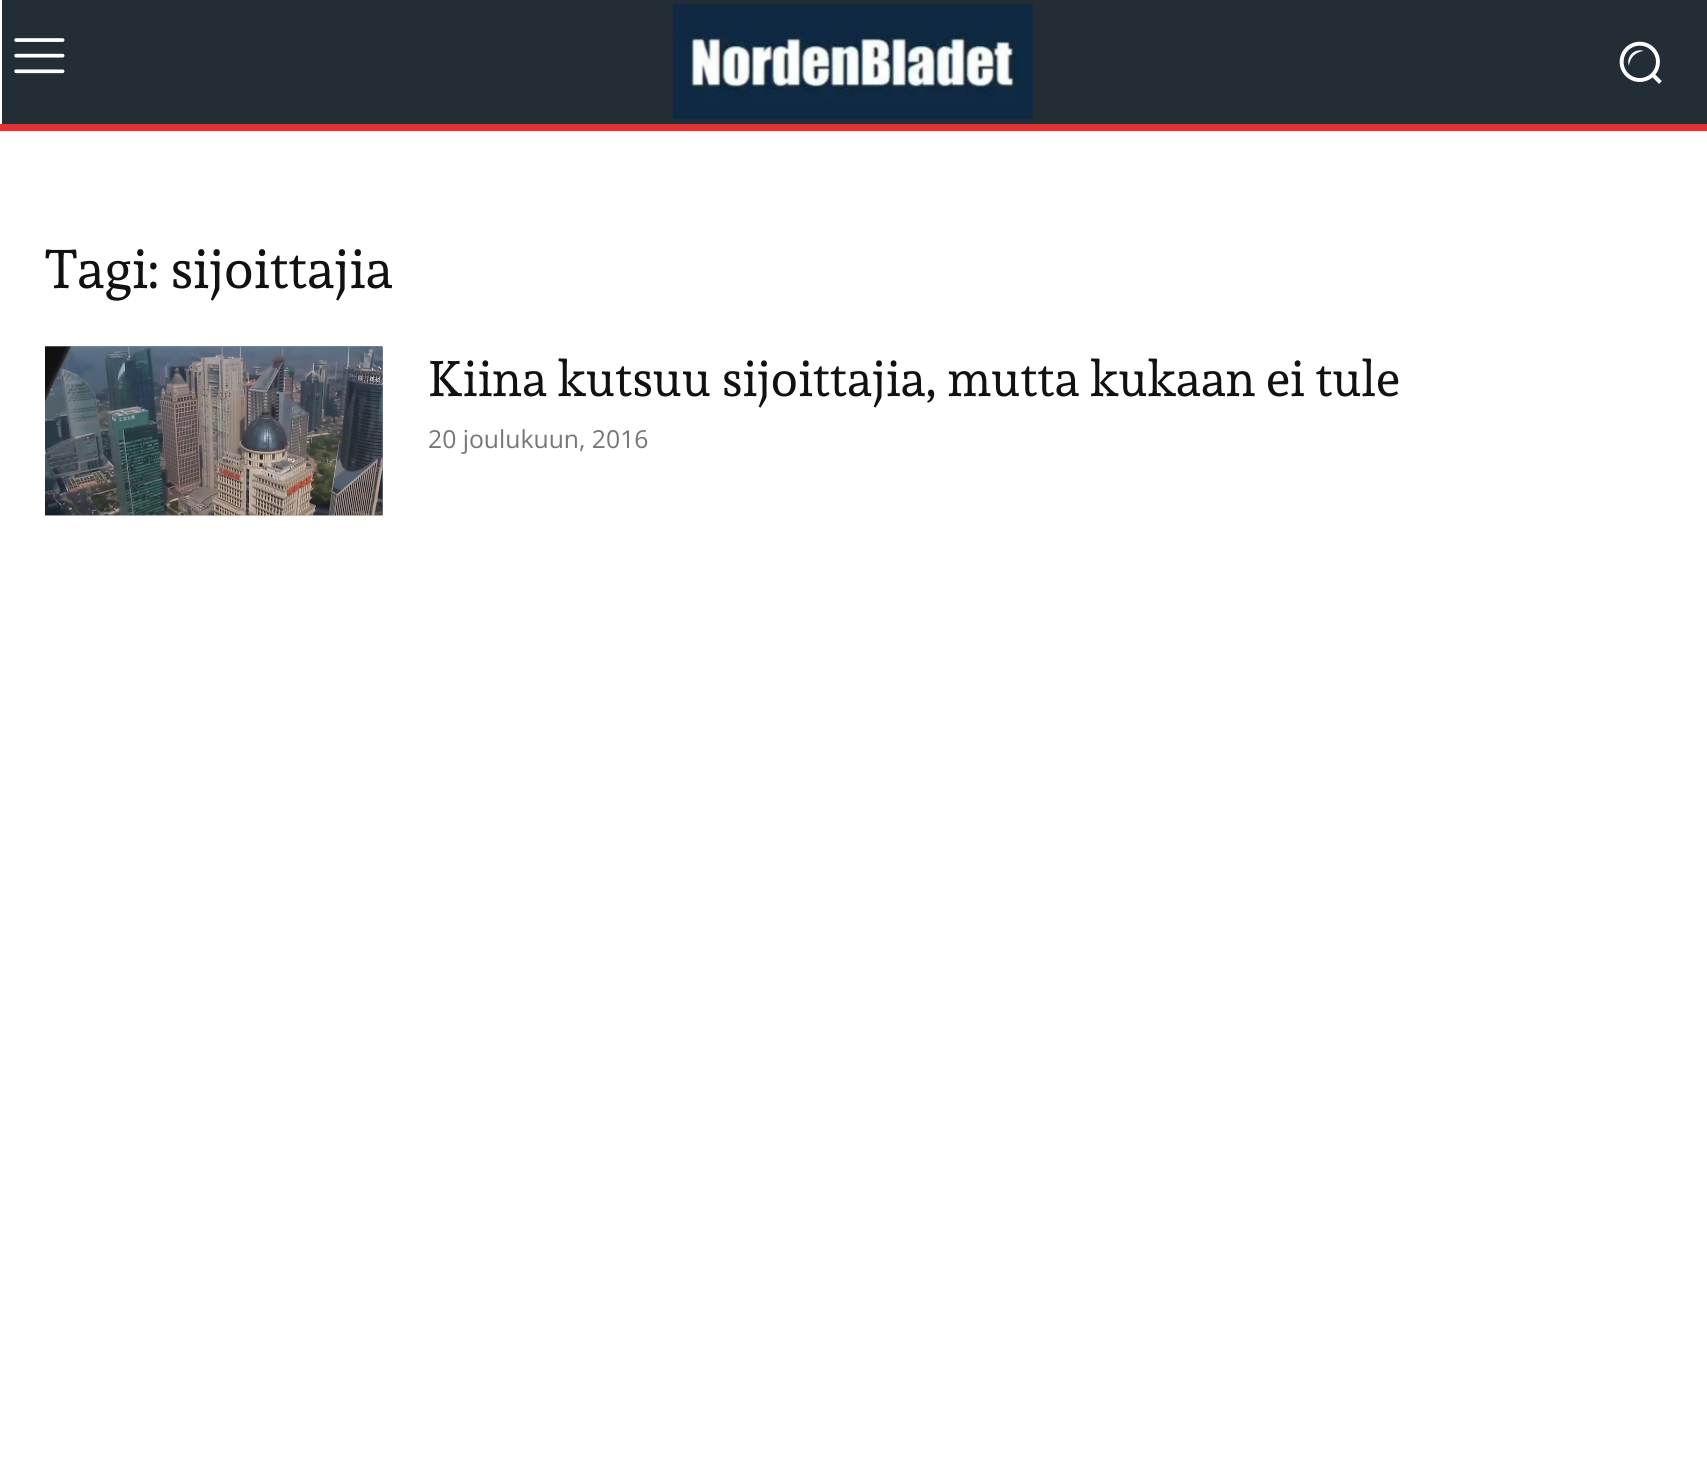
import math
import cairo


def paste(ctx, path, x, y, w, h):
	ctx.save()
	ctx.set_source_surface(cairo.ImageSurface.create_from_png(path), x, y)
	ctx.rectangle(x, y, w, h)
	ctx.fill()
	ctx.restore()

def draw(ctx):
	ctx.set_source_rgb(1, 1, 1)
	ctx.paint()
	ctx.set_source_rgb(0.137, 0.176, 0.208)
	ctx.rectangle(2, 0, 1705, 124)
	ctx.fill()
	paste(ctx, 'media/1.png', 14, 38, 51, 36)
	paste(ctx, 'media/2.png', 672, 4, 361, 116)
	paste(ctx, 'media/3.png', 1619, 41, 43, 43)
	ctx.set_source_rgb(0.867, 0.2, 0.2)
	ctx.rectangle(0, 124, 1707, 7)
	ctx.fill()
	ctx.select_font_face('Sura')
	ctx.set_font_size(54)
	ctx.set_source_rgb(0.067, 0.067, 0.067)
	ctx.move_to(45, 288)
	ctx.show_text('Tagi: sijoittajia')
	paste(ctx, 'media/4.png', 45, 346, 338, 170)
	paste(ctx, 'media/5.png', 45, 346, 338, 170)
	ctx.set_font_size(49.5)
	ctx.move_to(428, 396)
	ctx.show_text('Kiina kutsuu sijoittajia, mutta kukaan ei tule')
	ctx.select_font_face('Open Sans')
	ctx.set_font_size(24.75)
	ctx.set_source_rgb(0.463, 0.463, 0.463)
	ctx.move_to(428, 448)
	ctx.show_text('20 joulukuun, 2016')


surface = cairo.ImageSurface(cairo.FORMAT_RGB24, 1707, 1478)
ctx = cairo.Context(surface)
options = cairo.FontOptions()
options.set_hint_metrics(cairo.HINT_METRICS_OFF)
options.set_hint_style(cairo.HINT_STYLE_NONE)
ctx.set_font_options(options)
ctx.set_miter_limit(4)
draw(ctx)
surface.write_to_png('image.png')
